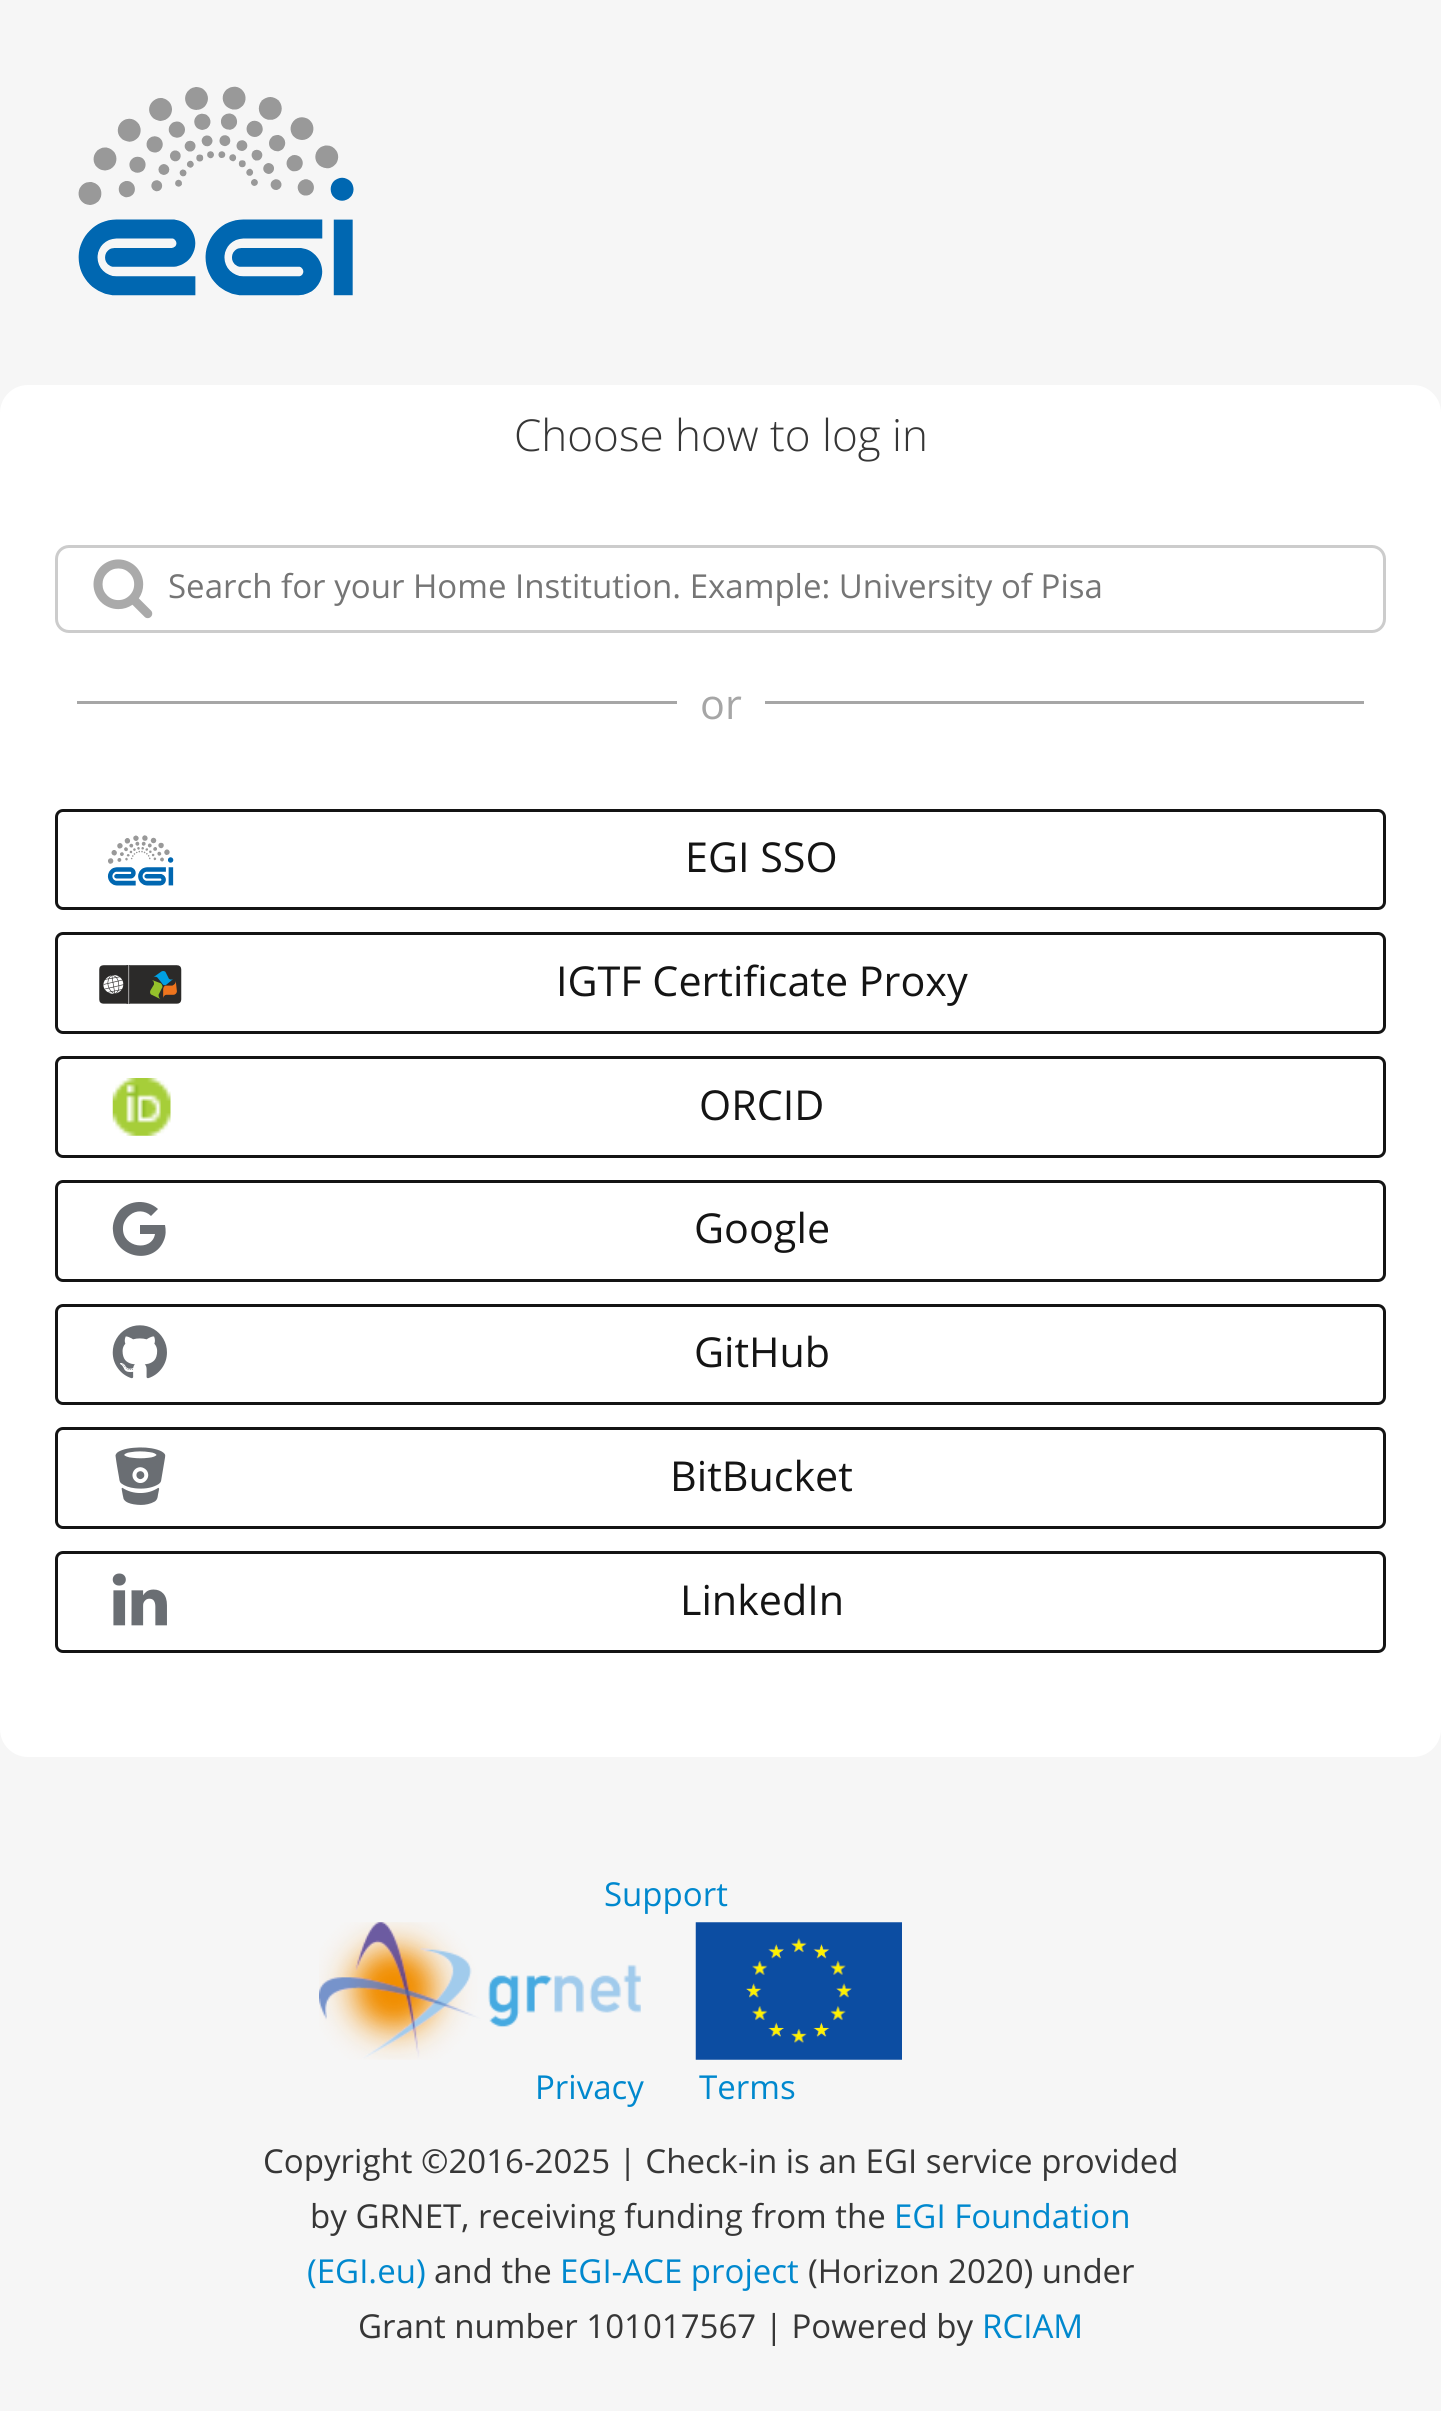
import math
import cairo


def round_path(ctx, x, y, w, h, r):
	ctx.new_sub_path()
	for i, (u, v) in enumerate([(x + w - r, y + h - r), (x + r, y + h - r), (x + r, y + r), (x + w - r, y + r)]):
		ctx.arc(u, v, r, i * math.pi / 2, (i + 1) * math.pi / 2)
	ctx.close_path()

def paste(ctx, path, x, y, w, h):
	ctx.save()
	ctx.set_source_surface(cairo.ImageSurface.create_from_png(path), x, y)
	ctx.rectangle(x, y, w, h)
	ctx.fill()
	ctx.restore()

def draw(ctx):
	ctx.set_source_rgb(0.961, 0.961, 0.961)
	ctx.paint()
	paste(ctx, 'media/1.png', 78, 86, 276, 210)
	ctx.set_source_rgb(1, 1, 1)
	round_path(ctx, 0, 385, 1441, 1372, 28)
	ctx.fill()
	ctx.select_font_face('Open Sans Light')
	ctx.set_font_size(44)
	ctx.set_source_rgb(0.212, 0.212, 0.212)
	ctx.move_to(514, 451)
	ctx.show_text('Choose how to log in')
	round_path(ctx, 56.5, 546.5, 1328, 85, 12.5)
	ctx.set_source_rgb(0.8, 0.8, 0.8)
	ctx.set_line_width(3)
	ctx.stroke()
	paste(ctx, 'media/2.png', 93, 559, 60, 60)
	ctx.select_font_face('Open Sans')
	ctx.set_font_size(33)
	ctx.set_source_rgb(0.459, 0.459, 0.459)
	ctx.move_to(168, 598)
	ctx.show_text('Search for your Home Institution. Example: University of Pisa')
	ctx.set_source_rgb(0.651, 0.651, 0.651)
	ctx.rectangle(77, 701, 600, 3)
	ctx.fill()
	ctx.set_font_size(41.25)
	ctx.move_to(700, 719)
	ctx.show_text('or')
	ctx.rectangle(765, 701, 599, 3)
	ctx.fill()
	paste(ctx, 'media/3.png', 107, 835, 67, 51)
	round_path(ctx, 56.5, 810.5, 1328, 98, 6.5)
	ctx.set_source_rgb(0.082, 0.082, 0.082)
	ctx.stroke()
	ctx.move_to(685, 872)
	ctx.show_text('EGI SSO')
	paste(ctx, 'media/4.png', 99, 965, 83, 39)
	round_path(ctx, 56.5, 933.5, 1328, 99, 6.5)
	ctx.stroke()
	ctx.move_to(556, 996)
	ctx.show_text('IGTF Certificate Proxy')
	paste(ctx, 'media/5.png', 112, 1078, 59, 58)
	round_path(ctx, 56.5, 1057.5, 1328, 99, 6.5)
	ctx.stroke()
	ctx.move_to(699, 1120)
	ctx.show_text('ORCID')
	ctx.set_source_rgb(0.416, 0.431, 0.451)
	ctx.new_path()
	ctx.move_to(140, 1225)
	ctx.line_to(165, 1225)
	ctx.curve_to(166, 1230, 166, 1235, 164, 1240)
	ctx.curve_to(154, 1266, 115, 1258, 113, 1231)
	ctx.curve_to(112, 1224, 115, 1216, 120, 1210)
	ctx.curve_to(130, 1200, 147, 1199, 158, 1209)
	ctx.line_to(151, 1216)
	ctx.curve_to(145, 1210, 136, 1210, 130, 1215)
	ctx.curve_to(126, 1218, 123, 1223, 123, 1228)
	ctx.curve_to(122, 1248, 152, 1252, 155, 1234)
	ctx.line_to(140, 1234)
	ctx.close_path()
	ctx.fill()
	round_path(ctx, 56.5, 1181.5, 1328, 99, 6.5)
	ctx.set_source_rgb(0.082, 0.082, 0.082)
	ctx.stroke()
	ctx.move_to(694, 1243)
	ctx.show_text('Google')
	paste(ctx, 'media/6.png', 112, 1325, 55, 54)
	round_path(ctx, 56.5, 1305.5, 1328, 98, 6.5)
	ctx.stroke()
	ctx.move_to(694, 1367)
	ctx.show_text('GitHub')
	paste(ctx, 'media/7.png', 115, 1447, 51, 58)
	round_path(ctx, 56.5, 1428.5, 1328, 99, 6.5)
	ctx.stroke()
	ctx.move_to(670, 1491)
	ctx.show_text('BitBucket')
	paste(ctx, 'media/8.png', 112, 1573, 55, 53)
	round_path(ctx, 56.5, 1552.5, 1328, 99, 6.5)
	ctx.stroke()
	ctx.move_to(680, 1615)
	ctx.show_text('LinkedIn')
	ctx.set_font_size(33)
	ctx.set_source_rgb(0, 0.533, 0.808)
	ctx.move_to(604, 1906)
	ctx.show_text('Support')
	paste(ctx, 'media/9.png', 319, 1922, 322, 138)
	paste(ctx, 'media/10.png', 695, 1922, 207, 138)
	ctx.move_to(535, 2099)
	ctx.show_text('Privacy')
	ctx.move_to(699, 2099)
	ctx.show_text('Terms')
	ctx.set_source_rgb(0.212, 0.212, 0.212)
	ctx.move_to(263, 2173)
	ctx.show_text('Copyright ©2016-2025 | Check-in is an EGI service provided')
	ctx.move_to(310, 2228)
	ctx.show_text('by GRNET, receiving funding from the')
	ctx.set_source_rgb(0, 0.533, 0.808)
	ctx.move_to(894, 2228)
	ctx.show_text('EGI Foundation')
	ctx.move_to(307, 2283)
	ctx.show_text('(EGI.eu)')
	ctx.set_source_rgb(0.212, 0.212, 0.212)
	ctx.move_to(434, 2283)
	ctx.show_text('and the')
	ctx.set_source_rgb(0, 0.533, 0.808)
	ctx.move_to(560, 2283)
	ctx.show_text('EGI-ACE project')
	ctx.set_source_rgb(0.212, 0.212, 0.212)
	ctx.move_to(808, 2283)
	ctx.show_text('(Horizon 2020) under')
	ctx.move_to(358, 2338)
	ctx.show_text('Grant number 101017567 | Powered by')
	ctx.set_source_rgb(0, 0.533, 0.808)
	ctx.move_to(982, 2338)
	ctx.show_text('RCIAM')


surface = cairo.ImageSurface(cairo.FORMAT_RGB24, 1441, 2411)
ctx = cairo.Context(surface)
options = cairo.FontOptions()
options.set_hint_metrics(cairo.HINT_METRICS_OFF)
options.set_hint_style(cairo.HINT_STYLE_NONE)
ctx.set_font_options(options)
ctx.set_miter_limit(4)
draw(ctx)
surface.write_to_png('image.png')
